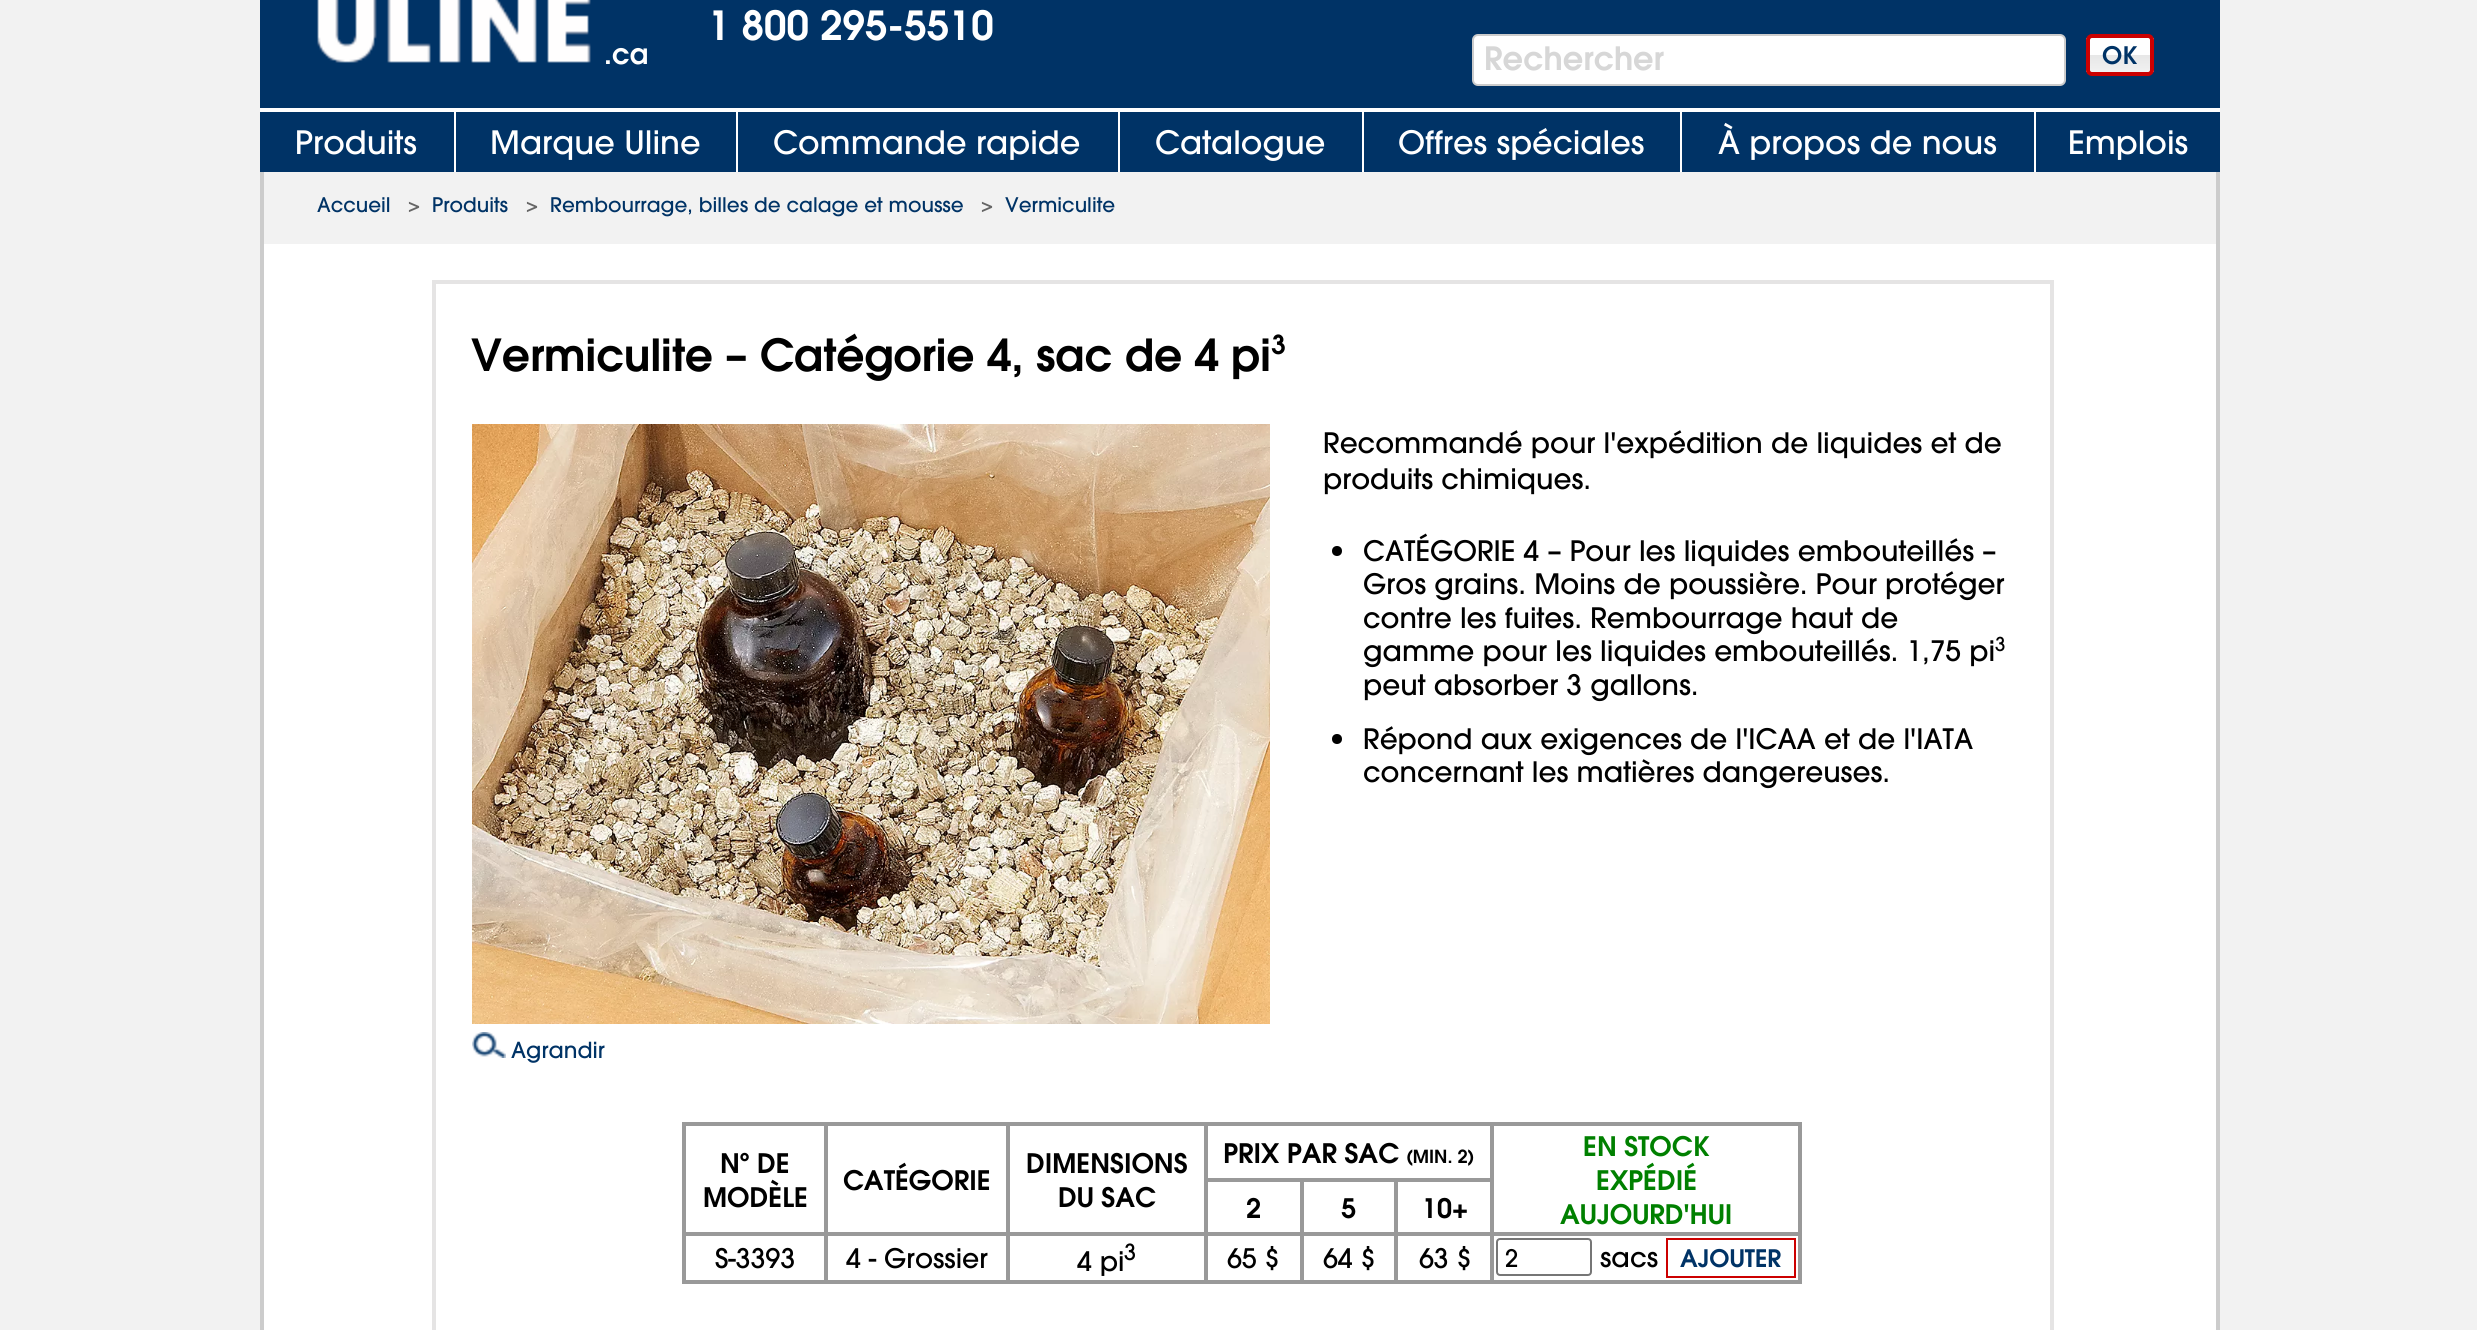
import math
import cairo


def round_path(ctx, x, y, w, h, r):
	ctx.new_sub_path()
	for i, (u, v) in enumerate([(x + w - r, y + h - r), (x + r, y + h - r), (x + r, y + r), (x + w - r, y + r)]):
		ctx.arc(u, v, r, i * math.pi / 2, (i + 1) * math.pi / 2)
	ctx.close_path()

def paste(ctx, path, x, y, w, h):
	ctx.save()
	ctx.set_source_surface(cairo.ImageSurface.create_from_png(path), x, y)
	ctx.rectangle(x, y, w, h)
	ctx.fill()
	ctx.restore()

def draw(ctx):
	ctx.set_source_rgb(0.949, 0.949, 0.949)
	ctx.paint()
	ctx.set_source_rgb(1, 1, 1)
	ctx.rectangle(264, 244, 1952, 1086)
	ctx.fill()
	ctx.set_source_rgb(0, 0.2, 0.4)
	ctx.rectangle(260, 0, 1960, 172)
	ctx.fill()
	ctx.select_font_face('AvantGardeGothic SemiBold')
	ctx.set_font_size(40)
	ctx.set_source_rgb(1, 1, 1)
	ctx.move_to(708, 40)
	ctx.show_text('1 800 295-5510')
	paste(ctx, 'media/1.png', 317, 0, 274, 63)
	ctx.set_font_size(28)
	ctx.move_to(604, 64)
	ctx.show_text('.ca')
	round_path(ctx, 1473, 35, 592, 50, 5)
	ctx.fill_preserve()
	ctx.set_source_rgb(0.8, 0.8, 0.8)
	ctx.stroke()
	ctx.set_font_size(32)
	ctx.set_source_rgb(0.843, 0.843, 0.843)
	ctx.move_to(1484, 70)
	ctx.show_text('Rechercher')
	ctx.save()
	round_path(ctx, 2086, 34, 68, 42, 6)
	ctx.clip()
	gradient = cairo.LinearGradient(2120, 38, 2120, 72)
	gradient.add_color_stop_rgba(0.5, 1, 1, 1, 1)
	gradient.add_color_stop_rgba(0.5, 0.906, 0.906, 0.906, 1)
	gradient.add_color_stop_rgba(1, 0.945, 0.945, 0.945, 1)
	ctx.set_source(gradient)
	ctx.rectangle(2086, 38, 68, 34)
	ctx.fill()
	ctx.restore()
	round_path(ctx, 2088, 36, 64, 38, 4)
	ctx.set_source_rgb(0.8, 0, 0)
	ctx.set_line_width(4)
	ctx.stroke()
	ctx.set_font_size(24)
	ctx.set_source_rgb(0, 0.2, 0.4)
	ctx.move_to(2102, 64)
	ctx.show_text('OK')
	ctx.set_source_rgb(1, 1, 1)
	ctx.rectangle(260, 108, 1960, 4)
	ctx.fill()
	ctx.rectangle(454, 112, 2, 60)
	ctx.fill()
	ctx.select_font_face('AvantGardeGothic Medium')
	ctx.set_font_size(32)
	ctx.move_to(295, 154)
	ctx.show_text('Produits')
	ctx.rectangle(736, 112, 2, 60)
	ctx.fill()
	ctx.move_to(490, 154)
	ctx.show_text('Marque Uline')
	ctx.rectangle(1118, 112, 2, 60)
	ctx.fill()
	ctx.move_to(773, 154)
	ctx.show_text('Commande rapide')
	ctx.rectangle(1362, 112, 2, 60)
	ctx.fill()
	ctx.move_to(1155, 154)
	ctx.show_text('Catalogue')
	ctx.rectangle(1680, 112, 2, 60)
	ctx.fill()
	ctx.move_to(1398, 154)
	ctx.show_text('Offres spéciales')
	ctx.rectangle(2034, 112, 2, 60)
	ctx.fill()
	ctx.move_to(1718, 154)
	ctx.show_text('À propos de nous')
	ctx.move_to(2068, 154)
	ctx.show_text('Emplois')
	ctx.set_source_rgb(0.8, 0.8, 0.8)
	ctx.rectangle(2216, 172, 4, 1158)
	ctx.fill()
	ctx.rectangle(260, 172, 4, 1158)
	ctx.fill()
	ctx.set_font_size(20)
	ctx.set_source_rgb(0, 0.2, 0.4)
	ctx.move_to(317, 212)
	ctx.show_text('Accueil')
	ctx.set_source_rgb(0.4, 0.4, 0.4)
	ctx.move_to(408, 212)
	ctx.show_text('>')
	ctx.set_source_rgb(0, 0.2, 0.4)
	ctx.move_to(432, 212)
	ctx.show_text('Produits')
	ctx.set_source_rgb(0.4, 0.4, 0.4)
	ctx.move_to(526, 212)
	ctx.show_text('>')
	ctx.set_source_rgb(0, 0.2, 0.4)
	ctx.move_to(550, 212)
	ctx.show_text('Rembourrage, billes de calage et mousse')
	ctx.set_source_rgb(0.4, 0.4, 0.4)
	ctx.move_to(981, 212)
	ctx.show_text('>')
	ctx.set_source_rgb(0, 0.2, 0.4)
	ctx.move_to(1005, 212)
	ctx.show_text('Vermiculite')
	ctx.rectangle(434, 282, 1618, 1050)
	ctx.set_source_rgb(0.898, 0.894, 0.894)
	ctx.stroke()
	ctx.select_font_face('AvantGardeGothic SemiBold')
	ctx.set_font_size(44)
	ctx.set_source_rgb(0, 0, 0)
	ctx.move_to(471, 371)
	ctx.show_text('Vermiculite – Catégorie 4, sac de 4 pi')
	ctx.set_font_size(26)
	ctx.move_to(1271, 354)
	ctx.show_text('3')
	ctx.select_font_face('AvantGardeGothic Medium')
	ctx.set_font_size(28)
	ctx.move_to(1323, 453)
	ctx.show_text('Recommandé pour l\'expédition de liquides et de')
	ctx.move_to(1323, 489)
	ctx.show_text('produits chimiques.')
	ctx.new_path()
	ctx.arc(1337, 551, 5, 0, 2 * math.pi)
	ctx.fill()
	for x, y, s in [
		(1363, 561, 'CATÉGORIE 4 – Pour les liquides embouteillés –'),
		(1363, 594, 'Gros grains. Moins de poussière. Pour protéger'),
		(1363, 628, 'contre les fuites. Rembourrage haut de'),
		(1363, 661, 'gamme pour les liquides embouteillés. 1,75 pi'),
	]:
		ctx.move_to(x, y)
		ctx.show_text(s)
	ctx.set_font_size(19)
	ctx.move_to(1995, 651)
	ctx.show_text('3')
	ctx.set_font_size(28)
	ctx.move_to(1363, 695)
	ctx.show_text('peut absorber 3 gallons.')
	ctx.new_path()
	ctx.arc(1337, 739, 5, 0, 2 * math.pi)
	ctx.fill()
	ctx.move_to(1363, 749)
	ctx.show_text('Répond aux exigences de l\'ICAA et de l\'IATA')
	ctx.move_to(1363, 782)
	ctx.show_text('concernant les matières dangereuses.')
	paste(ctx, 'media/2.png', 472, 424, 798, 600)
	paste(ctx, 'media/3.png', 472, 1032, 34, 26)
	ctx.set_font_size(22)
	ctx.set_source_rgb(0, 0.2, 0.4)
	ctx.move_to(511, 1058)
	ctx.show_text('Agrandir')
	ctx.rectangle(683, 1123, 1118, 160)
	ctx.set_source_rgb(0.6, 0.6, 0.6)
	ctx.set_line_width(2)
	ctx.stroke()
	ctx.rectangle(685, 1125, 140, 108)
	ctx.stroke()
	ctx.select_font_face('AvantGardeGothic SemiBold')
	ctx.set_font_size(26.75)
	ctx.set_source_rgb(0, 0, 0)
	ctx.move_to(720, 1173)
	ctx.show_text('Nº DE')
	ctx.move_to(703, 1207)
	ctx.show_text('MODÈLE')
	ctx.rectangle(827, 1125, 180, 108)
	ctx.set_source_rgb(0.6, 0.6, 0.6)
	ctx.stroke()
	ctx.set_source_rgb(0, 0, 0)
	ctx.move_to(843, 1190)
	ctx.show_text('CATÉGORIE')
	ctx.rectangle(1009, 1125, 196, 108)
	ctx.set_source_rgb(0.6, 0.6, 0.6)
	ctx.stroke()
	ctx.set_source_rgb(0, 0, 0)
	ctx.move_to(1026, 1173)
	ctx.show_text('DIMENSIONS')
	ctx.move_to(1058, 1207)
	ctx.show_text('DU SAC')
	ctx.rectangle(1207, 1125, 284, 54)
	ctx.set_source_rgb(0.6, 0.6, 0.6)
	ctx.stroke()
	ctx.set_source_rgb(0, 0, 0)
	ctx.move_to(1223, 1163)
	ctx.show_text('PRIX PAR SAC')
	ctx.set_font_size(18)
	ctx.move_to(1406, 1163)
	ctx.show_text('(MIN. 2)')
	ctx.rectangle(1493, 1125, 306, 108)
	ctx.set_source_rgb(0.6, 0.6, 0.6)
	ctx.stroke()
	ctx.set_font_size(26.75)
	ctx.set_source_rgb(0, 0.502, 0)
	for x, y, s in [
		(1583, 1156, 'EN STOCK'),
		(1596, 1190, 'EXPÉDIÉ'),
		(1560, 1224, 'AUJOURD\'HUI'),
	]:
		ctx.move_to(x, y)
		ctx.show_text(s)
	ctx.rectangle(1207, 1181, 94, 52)
	ctx.set_source_rgb(0.6, 0.6, 0.6)
	ctx.stroke()
	ctx.set_source_rgb(0, 0, 0)
	ctx.move_to(1246, 1218)
	ctx.show_text('2')
	ctx.rectangle(1303, 1181, 92, 52)
	ctx.set_source_rgb(0.6, 0.6, 0.6)
	ctx.stroke()
	ctx.set_source_rgb(0, 0, 0)
	ctx.move_to(1341, 1218)
	ctx.show_text('5')
	ctx.rectangle(1397, 1181, 94, 52)
	ctx.set_source_rgb(0.6, 0.6, 0.6)
	ctx.stroke()
	ctx.set_source_rgb(0, 0, 0)
	ctx.move_to(1422, 1218)
	ctx.show_text('10+')
	ctx.rectangle(685, 1235, 140, 46)
	ctx.set_source_rgb(0.6, 0.6, 0.6)
	ctx.stroke()
	ctx.select_font_face('AvantGardeGothic Medium')
	ctx.set_source_rgb(0, 0, 0)
	ctx.move_to(715, 1268)
	ctx.show_text('S-3393')
	ctx.rectangle(827, 1235, 180, 46)
	ctx.set_source_rgb(0.6, 0.6, 0.6)
	ctx.stroke()
	ctx.set_source_rgb(0, 0, 0)
	ctx.move_to(846, 1268)
	ctx.show_text('4 - Grossier')
	ctx.rectangle(1009, 1235, 196, 46)
	ctx.set_source_rgb(0.6, 0.6, 0.6)
	ctx.stroke()
	ctx.set_source_rgb(0, 0, 0)
	ctx.move_to(1077, 1271)
	ctx.show_text('4 pi')
	ctx.set_font_size(22)
	ctx.move_to(1124, 1260)
	ctx.show_text('3')
	ctx.rectangle(1207, 1235, 94, 46)
	ctx.set_source_rgb(0.6, 0.6, 0.6)
	ctx.stroke()
	ctx.set_font_size(26.75)
	ctx.set_source_rgb(0, 0, 0)
	ctx.move_to(1227, 1268)
	ctx.show_text('65 $')
	ctx.rectangle(1303, 1235, 92, 46)
	ctx.set_source_rgb(0.6, 0.6, 0.6)
	ctx.stroke()
	ctx.set_source_rgb(0, 0, 0)
	ctx.move_to(1323, 1268)
	ctx.show_text('64 $')
	ctx.rectangle(1397, 1235, 94, 46)
	ctx.set_source_rgb(0.6, 0.6, 0.6)
	ctx.stroke()
	ctx.set_source_rgb(0, 0, 0)
	ctx.move_to(1419, 1268)
	ctx.show_text('63 $')
	ctx.rectangle(1493, 1235, 306, 46)
	ctx.set_source_rgb(0.6, 0.6, 0.6)
	ctx.stroke()
	round_path(ctx, 1497, 1239, 94, 36, 3)
	ctx.set_source_rgb(0.463, 0.463, 0.463)
	ctx.stroke()
	ctx.set_font_size(24)
	ctx.set_source_rgb(0, 0, 0)
	ctx.move_to(1505, 1267)
	ctx.show_text('2')
	ctx.set_font_size(26.75)
	ctx.move_to(1600, 1267)
	ctx.show_text('sacs')
	ctx.rectangle(1667, 1239, 128, 38)
	ctx.set_source_rgb(0.8, 0, 0)
	ctx.stroke()
	ctx.select_font_face('AvantGardeGothic SemiBold')
	ctx.set_font_size(24)
	ctx.set_source_rgb(0, 0.2, 0.4)
	ctx.move_to(1680, 1267)
	ctx.show_text('AJOUTER')


surface = cairo.ImageSurface(cairo.FORMAT_RGB24, 2477, 1330)
ctx = cairo.Context(surface)
options = cairo.FontOptions()
options.set_hint_metrics(cairo.HINT_METRICS_OFF)
options.set_hint_style(cairo.HINT_STYLE_NONE)
ctx.set_font_options(options)
ctx.set_miter_limit(4)
draw(ctx)
surface.write_to_png('image.png')
